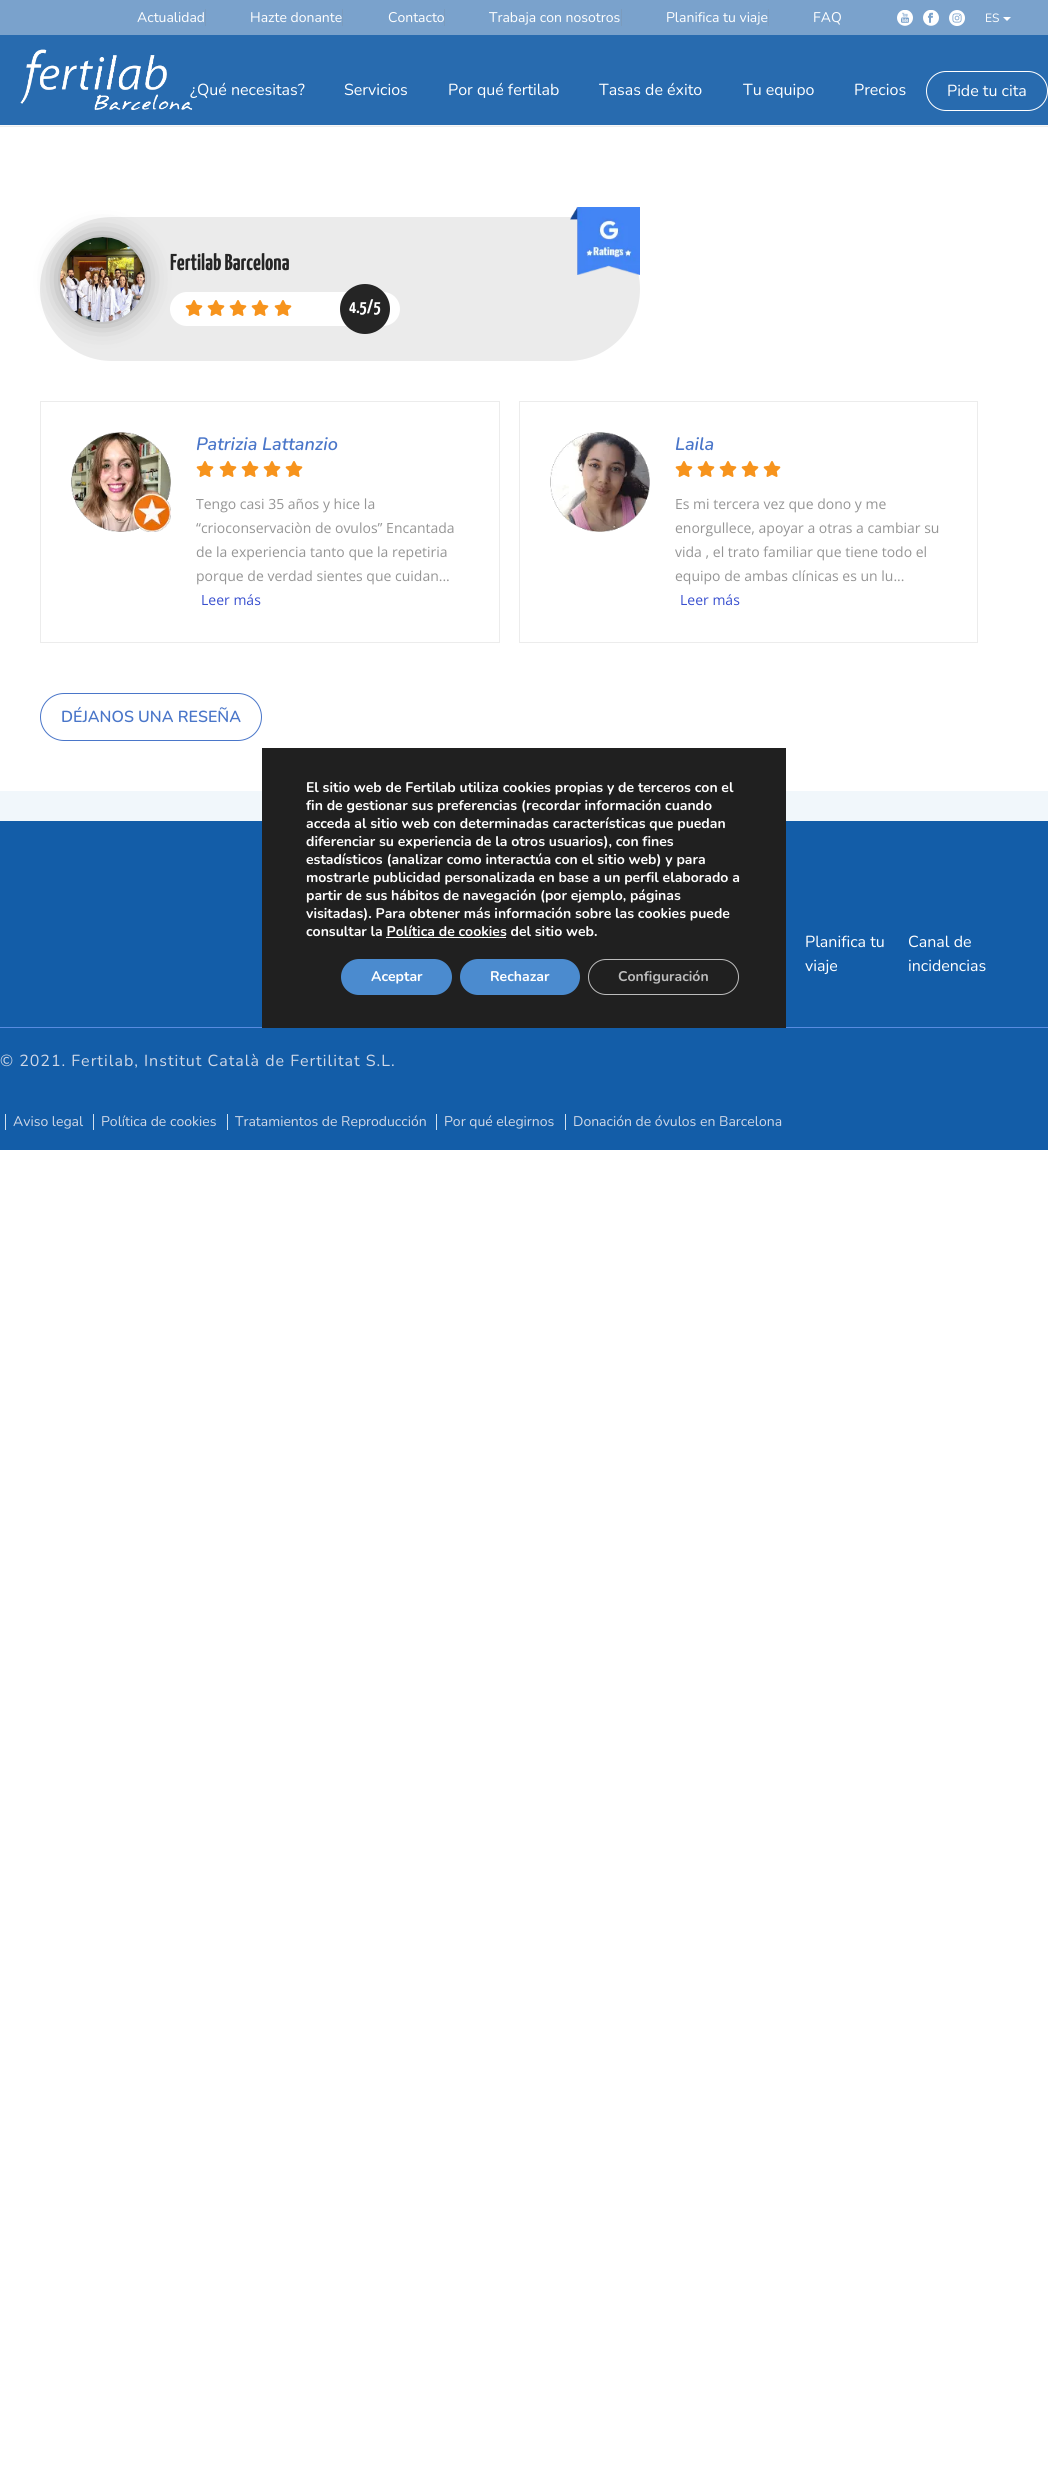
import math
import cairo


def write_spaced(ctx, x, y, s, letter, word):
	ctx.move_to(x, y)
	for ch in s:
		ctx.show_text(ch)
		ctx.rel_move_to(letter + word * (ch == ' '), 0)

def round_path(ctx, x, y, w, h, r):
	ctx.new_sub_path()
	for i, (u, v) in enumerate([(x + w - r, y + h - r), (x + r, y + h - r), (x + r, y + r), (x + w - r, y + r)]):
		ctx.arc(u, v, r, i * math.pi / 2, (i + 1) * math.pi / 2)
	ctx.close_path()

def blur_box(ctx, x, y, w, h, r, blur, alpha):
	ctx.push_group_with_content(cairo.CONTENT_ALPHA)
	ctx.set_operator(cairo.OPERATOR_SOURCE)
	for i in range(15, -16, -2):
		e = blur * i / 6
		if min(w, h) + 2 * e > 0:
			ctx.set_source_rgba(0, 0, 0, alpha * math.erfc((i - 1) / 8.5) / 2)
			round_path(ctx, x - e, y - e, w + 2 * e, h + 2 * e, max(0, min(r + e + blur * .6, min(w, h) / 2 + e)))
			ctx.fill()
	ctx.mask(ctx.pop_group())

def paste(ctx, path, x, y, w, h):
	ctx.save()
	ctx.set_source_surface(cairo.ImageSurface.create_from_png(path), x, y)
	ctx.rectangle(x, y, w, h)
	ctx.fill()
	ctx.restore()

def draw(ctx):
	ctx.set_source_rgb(1, 1, 1)
	ctx.paint()
	ctx.set_source_rgb(0.969, 0.969, 0.969)
	ctx.rectangle(0, 125, 1048, 1)
	ctx.fill()
	ctx.set_source_rgb(0.929, 0.929, 0.929)
	ctx.rectangle(0, 126, 1048, 1)
	ctx.fill()
	ctx.set_source_rgb(0.478, 0.635, 0.8)
	ctx.rectangle(0, 0, 1048, 35)
	ctx.fill()
	ctx.set_source_rgb(0.482, 0.608, 0.741)
	ctx.rectangle(205, 9, 1, 17)
	ctx.fill()
	ctx.select_font_face('Nunito')
	ctx.set_font_size(14)
	ctx.set_source_rgb(1, 1, 1)
	ctx.move_to(137, 22)
	ctx.show_text('Actualidad')
	ctx.set_source_rgb(0.482, 0.608, 0.741)
	ctx.rectangle(342, 9, 1, 17)
	ctx.fill()
	ctx.set_source_rgb(1, 1, 1)
	ctx.move_to(250, 22)
	ctx.show_text('Hazte donante')
	ctx.set_source_rgb(0.482, 0.608, 0.741)
	ctx.rectangle(444, 9, 1, 17)
	ctx.fill()
	ctx.set_source_rgb(1, 1, 1)
	ctx.move_to(388, 22)
	ctx.show_text('Contacto')
	ctx.set_source_rgb(0.482, 0.608, 0.741)
	ctx.rectangle(621, 9, 1, 17)
	ctx.fill()
	ctx.set_source_rgb(1, 1, 1)
	ctx.move_to(489, 22)
	ctx.show_text('Trabaja con nosotros')
	ctx.set_source_rgb(0.482, 0.608, 0.741)
	ctx.rectangle(768, 9, 1, 17)
	ctx.fill()
	ctx.set_source_rgb(1, 1, 1)
	ctx.move_to(666, 22)
	ctx.show_text('Planifica tu viaje')
	ctx.move_to(813, 22)
	ctx.show_text('FAQ')
	paste(ctx, 'media/1.png', 897, 10, 16, 16)
	paste(ctx, 'media/2.png', 923, 10, 16, 16)
	paste(ctx, 'media/3.png', 949, 10, 16, 16)
	ctx.set_font_size(12)
	ctx.move_to(985, 22)
	ctx.show_text('ES')
	paste(ctx, 'media/4.png', 1003, 17, 8, 4)
	ctx.set_source_rgb(0.157, 0.42, 0.686)
	ctx.rectangle(0, 35, 1048, 90)
	ctx.fill()
	ctx.set_font_size(16)
	ctx.set_source_rgb(1, 1, 1)
	ctx.move_to(190, 95)
	ctx.show_text('¿Qué necesitas?')
	paste(ctx, 'media/5.png', 20, 49, 173, 62)
	for x, y, s in [
		(344, 95, 'Servicios'),
		(448, 95, 'Por qué fertilab'),
		(599, 95, 'Tasas de éxito'),
		(743, 95, 'Tu equipo'),
		(854, 95, 'Precios'),
	]:
		ctx.move_to(x, y)
		ctx.show_text(s)
	round_path(ctx, 926.5, 71.5, 121, 39, 19.5)
	ctx.set_line_width(1)
	ctx.stroke()
	ctx.move_to(947, 96)
	ctx.show_text('Pide tu cita')
	ctx.set_source_rgb(0.918, 0.918, 0.918)
	round_path(ctx, 40, 217, 600, 144, 72)
	ctx.fill()
	paste(ctx, 'media/6.png', 570, 207, 70, 68)
	ctx.set_source_rgb(0, 0, 0)
	blur_box(ctx, 60, 237, 85, 85, 42.5, 12.5, 0.33)
	paste(ctx, 'media/7.png', 60, 237, 85, 85)
	ctx.select_font_face('Yanone Kaffeesatz', cairo.FONT_SLANT_NORMAL, cairo.FONT_WEIGHT_BOLD)
	ctx.set_font_size(23)
	ctx.set_source_rgb(0.145, 0.145, 0.145)
	ctx.move_to(170, 270)
	ctx.show_text('Fertilab Barcelona')
	ctx.set_source_rgb(1, 1, 1)
	round_path(ctx, 170, 292, 230, 34, 17)
	ctx.fill()
	paste(ctx, 'media/8.png', 185, 300, 18, 16)
	paste(ctx, 'media/8.png', 207, 300, 18, 16)
	paste(ctx, 'media/8.png', 229, 300, 18, 16)
	paste(ctx, 'media/8.png', 251, 300, 18, 16)
	paste(ctx, 'media/8.png', 274, 300, 18, 16)
	ctx.set_source_rgb(0.145, 0.145, 0.145)
	ctx.arc(365, 309, 25, 0, 2 * math.pi)
	ctx.fill()
	ctx.set_font_size(18)
	ctx.set_source_rgb(1, 1, 1)
	ctx.move_to(349, 313)
	ctx.show_text('4.5/5')
	ctx.rectangle(40.5, 401.5, 459, 241)
	ctx.set_source_rgb(0.922, 0.922, 0.922)
	ctx.stroke()
	paste(ctx, 'media/9.png', 71, 432, 100, 100)
	ctx.select_font_face('Nunito SemiBold', cairo.FONT_SLANT_ITALIC)
	ctx.set_source_rgb(0.29, 0.463, 0.788)
	ctx.move_to(196, 450)
	ctx.show_text('Patrizia Lattanzio')
	paste(ctx, 'media/8.png', 196, 461, 18, 16)
	paste(ctx, 'media/8.png', 219, 461, 18, 16)
	paste(ctx, 'media/8.png', 241, 461, 18, 16)
	paste(ctx, 'media/8.png', 263, 461, 18, 16)
	paste(ctx, 'media/8.png', 285, 461, 18, 16)
	ctx.select_font_face('Open Sans')
	ctx.set_font_size(14)
	ctx.set_source_rgb(0.584, 0.584, 0.584)
	for x, y, s in [
		(196, 509, 'Tengo casi 35 años y hice la'),
		(196, 533, '“crioconservaciòn de ovulos” Encantada'),
		(196, 557, 'de la experiencia tanto que la repetiria'),
		(196, 581, 'porque de verdad sientes que cuidan...'),
	]:
		ctx.move_to(x, y)
		ctx.show_text(s)
	ctx.set_source_rgb(0.22, 0.31, 0.812)
	ctx.move_to(201, 605)
	ctx.show_text('Leer más')
	ctx.rectangle(519.5, 401.5, 458, 241)
	ctx.set_source_rgb(0.922, 0.922, 0.922)
	ctx.stroke()
	paste(ctx, 'media/10.png', 550, 432, 100, 100)
	ctx.select_font_face('Nunito SemiBold', cairo.FONT_SLANT_ITALIC)
	ctx.set_font_size(18)
	ctx.set_source_rgb(0.29, 0.463, 0.788)
	ctx.move_to(675, 450)
	ctx.show_text('Laila')
	paste(ctx, 'media/8.png', 675, 461, 18, 16)
	paste(ctx, 'media/8.png', 697, 461, 18, 16)
	paste(ctx, 'media/8.png', 719, 461, 18, 16)
	paste(ctx, 'media/8.png', 741, 461, 18, 16)
	paste(ctx, 'media/8.png', 763, 461, 18, 16)
	ctx.select_font_face('Open Sans')
	ctx.set_font_size(14)
	ctx.set_source_rgb(0.584, 0.584, 0.584)
	for x, y, s in [
		(675, 509, 'Es mi tercera vez que dono y me'),
		(675, 533, 'enorgullece, apoyar a otras a cambiar su'),
		(675, 557, 'vida , el trato familiar que tiene todo el'),
		(675, 581, 'equipo de ambas clínicas es un lu...'),
	]:
		ctx.move_to(x, y)
		ctx.show_text(s)
	ctx.set_source_rgb(0.22, 0.31, 0.812)
	ctx.move_to(680, 605)
	ctx.show_text('Leer más')
	round_path(ctx, 40.5, 693.5, 221, 47, 23.5)
	ctx.set_source_rgb(0.29, 0.463, 0.788)
	ctx.stroke()
	ctx.select_font_face('Nunito SemiBold')
	ctx.set_font_size(16)
	ctx.move_to(61, 722)
	ctx.show_text('DÉJANOS UNA RESEÑA')
	ctx.set_source_rgb(0.945, 0.965, 0.984)
	ctx.rectangle(0, 791, 1048, 30)
	ctx.fill()
	ctx.set_source_rgb(0.078, 0.365, 0.659)
	ctx.rectangle(0, 821, 1048, 329)
	ctx.fill()
	ctx.select_font_face('Nunito')
	ctx.set_source_rgb(1, 1, 1)
	for x, y, s in [
		(805, 947, 'Planifica tu'),
		(805, 971, 'viaje'),
		(908, 947, 'Canal de'),
		(908, 971, 'incidencias'),
	]:
		ctx.move_to(x, y)
		ctx.show_text(s)
	ctx.set_source_rgb(0.341, 0.545, 0.878)
	ctx.rectangle(0, 1027, 1048, 1)
	ctx.fill()
	ctx.set_source_rgb(0.816, 0.847, 0.906)
	write_spaced(ctx, 0, 1066, '© 2021. Fertilab, Institut Català de Fertilitat S.L.', 1, 0)
	ctx.set_source_rgb(0.816, 0.875, 0.933)
	ctx.rectangle(5, 1114, 1, 16)
	ctx.fill()
	ctx.set_font_size(14)
	ctx.set_source_rgb(0.816, 0.847, 0.906)
	ctx.move_to(13, 1126)
	ctx.show_text('Aviso legal')
	ctx.set_source_rgb(0.816, 0.875, 0.933)
	ctx.rectangle(93, 1114, 1, 16)
	ctx.fill()
	ctx.set_source_rgb(0.816, 0.847, 0.906)
	ctx.move_to(101, 1126)
	ctx.show_text('Política de cookies')
	ctx.set_source_rgb(0.816, 0.875, 0.933)
	ctx.rectangle(227, 1114, 1, 16)
	ctx.fill()
	ctx.set_source_rgb(0.816, 0.847, 0.906)
	ctx.move_to(235, 1126)
	ctx.show_text('Tratamientos de Reproducción')
	ctx.set_source_rgb(0.816, 0.875, 0.933)
	ctx.rectangle(436, 1114, 1, 16)
	ctx.fill()
	ctx.set_source_rgb(0.816, 0.847, 0.906)
	ctx.move_to(444, 1126)
	ctx.show_text('Por qué elegirnos')
	ctx.set_source_rgb(0.816, 0.875, 0.933)
	ctx.rectangle(565, 1114, 1, 16)
	ctx.fill()
	ctx.set_source_rgb(0.816, 0.847, 0.906)
	ctx.move_to(573, 1126)
	ctx.show_text('Donación de óvulos en Barcelona')
	ctx.set_source_rgb(0.125, 0.125, 0.125)
	ctx.rectangle(262, 748, 524, 280)
	ctx.fill()
	ctx.select_font_face('Nunito', cairo.FONT_SLANT_NORMAL, cairo.FONT_WEIGHT_BOLD)
	ctx.set_source_rgb(1, 1, 1)
	for x, y, s in [
		(306, 792, 'El sitio web de Fertilab utiliza cookies propias y de terceros con el'),
		(306, 810, 'fin de gestionar sus preferencias (recordar información cuando'),
		(306, 828, 'acceda al sitio web con determinadas características que puedan'),
		(306, 846, 'diferenciar su experiencia de la otros usuarios), con fines'),
		(306, 864, 'estadísticos (analizar como interactúa con el sitio web) y para'),
		(306, 882, 'mostrarle publicidad personalizada en base a un perfil elaborado a'),
		(306, 900, 'partir de sus hábitos de navegación (por ejemplo, páginas'),
		(306, 918, 'visitadas). Para obtener más información sobre las cookies puede'),
		(306, 936, 'consultar la Política de cookies del sitio web.'),
	]:
		ctx.move_to(x, y)
		ctx.show_text(s)
	ctx.rectangle(386, 937, 120, 1)
	ctx.fill()
	ctx.set_source_rgb(0.294, 0.545, 0.812)
	round_path(ctx, 341, 959, 111, 36, 18)
	ctx.fill()
	ctx.set_source_rgb(1, 1, 1)
	ctx.move_to(371, 981)
	ctx.show_text('Aceptar')
	ctx.set_source_rgb(0.294, 0.545, 0.812)
	round_path(ctx, 460, 959, 120, 36, 18)
	ctx.fill()
	ctx.set_source_rgb(1, 1, 1)
	ctx.move_to(490, 981)
	ctx.show_text('Rechazar')
	round_path(ctx, 588.5, 959.5, 150, 35, 17.5)
	ctx.set_source_rgb(0.737, 0.737, 0.737)
	ctx.stroke()
	ctx.move_to(618, 981)
	ctx.show_text('Configuración')


surface = cairo.ImageSurface(cairo.FORMAT_RGB24, 1048, 2491)
ctx = cairo.Context(surface)
options = cairo.FontOptions()
options.set_hint_metrics(cairo.HINT_METRICS_OFF)
options.set_hint_style(cairo.HINT_STYLE_NONE)
ctx.set_font_options(options)
ctx.set_miter_limit(4)
draw(ctx)
surface.write_to_png('image.png')
